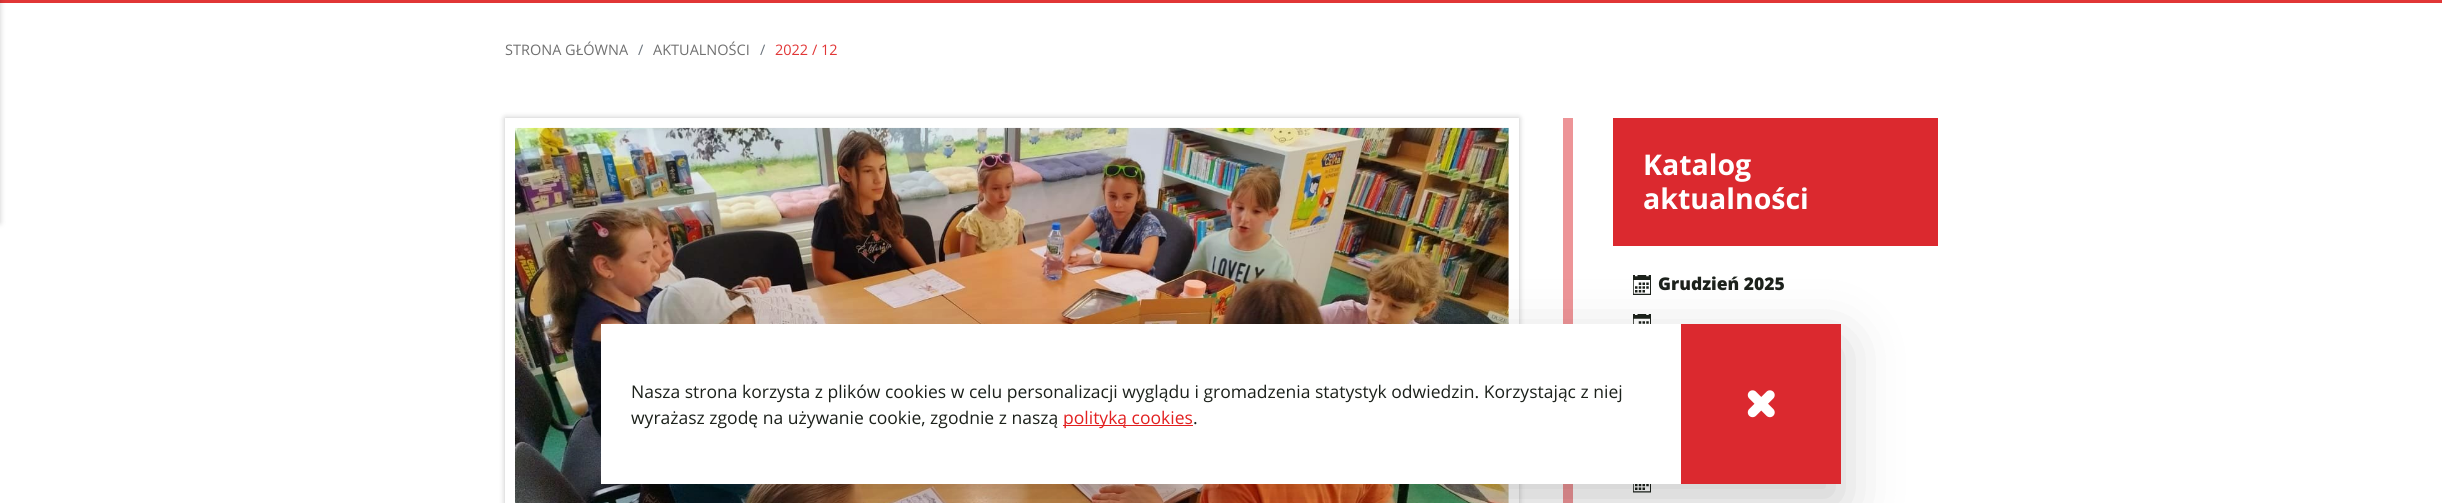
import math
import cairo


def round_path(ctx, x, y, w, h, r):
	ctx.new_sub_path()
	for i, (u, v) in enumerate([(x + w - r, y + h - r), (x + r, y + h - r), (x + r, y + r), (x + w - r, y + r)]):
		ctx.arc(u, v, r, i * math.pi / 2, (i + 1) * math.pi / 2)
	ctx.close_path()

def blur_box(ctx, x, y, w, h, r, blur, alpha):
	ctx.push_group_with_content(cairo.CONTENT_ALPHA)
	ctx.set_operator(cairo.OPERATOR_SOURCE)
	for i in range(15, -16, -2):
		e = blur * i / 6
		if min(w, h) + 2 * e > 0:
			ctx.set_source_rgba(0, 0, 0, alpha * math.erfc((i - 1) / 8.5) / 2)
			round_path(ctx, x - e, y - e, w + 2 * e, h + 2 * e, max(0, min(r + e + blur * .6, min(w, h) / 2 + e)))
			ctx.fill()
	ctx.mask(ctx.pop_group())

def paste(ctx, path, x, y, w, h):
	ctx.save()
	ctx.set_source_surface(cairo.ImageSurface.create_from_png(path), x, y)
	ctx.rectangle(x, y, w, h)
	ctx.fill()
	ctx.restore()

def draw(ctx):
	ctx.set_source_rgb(1, 1, 1)
	ctx.paint()
	ctx.set_source_rgb(0.882, 0.212, 0.212)
	ctx.rectangle(0, 0, 2442, 3)
	ctx.fill()
	ctx.set_source_rgb(0, 0, 0)
	blur_box(ctx, -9, -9, 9, 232, 0, 3, 0.2)
	ctx.select_font_face('Open Sans')
	ctx.set_font_size(14.5)
	ctx.set_source_rgb(0.439, 0.439, 0.439)
	ctx.move_to(505, 55)
	ctx.show_text('STRONA GŁÓWNA')
	ctx.set_source_rgb(0.424, 0.459, 0.49)
	ctx.move_to(638, 55)
	ctx.show_text('/')
	ctx.set_source_rgb(0.439, 0.439, 0.439)
	ctx.move_to(653, 55)
	ctx.show_text('AKTUALNOŚCI')
	ctx.set_source_rgb(0.424, 0.459, 0.49)
	ctx.move_to(760, 55)
	ctx.show_text('/')
	ctx.set_source_rgb(0.882, 0.212, 0.212)
	ctx.move_to(775, 55)
	ctx.show_text('2022 / 12')
	ctx.save()
	ctx.set_fill_rule(cairo.FILL_RULE_EVEN_ODD)
	ctx.new_path()
	ctx.move_to(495, 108)
	ctx.line_to(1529, 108)
	ctx.line_to(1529, 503)
	ctx.line_to(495, 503)
	ctx.close_path()
	ctx.move_to(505, 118)
	ctx.line_to(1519, 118)
	ctx.line_to(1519, 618)
	ctx.line_to(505, 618)
	ctx.close_path()
	ctx.clip()
	ctx.set_source_rgb(0.196, 0.196, 0.196)
	blur_box(ctx, 505, 118, 1014, 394, 0, 3, 0.3)
	ctx.restore()
	paste(ctx, 'media/1.png', 515, 127, 994, 376)
	ctx.set_source_rgb(0.929, 0.58, 0.592)
	ctx.rectangle(1563, 118, 10, 385)
	ctx.fill()
	ctx.set_source_rgb(0.859, 0.161, 0.184)
	ctx.rectangle(1613, 118, 325, 128)
	ctx.fill()
	ctx.select_font_face('Open Sans', cairo.FONT_SLANT_NORMAL, cairo.FONT_WEIGHT_BOLD)
	ctx.set_font_size(28.5)
	ctx.set_source_rgb(1, 1, 1)
	ctx.move_to(1643, 175)
	ctx.show_text('Katalog')
	ctx.move_to(1643, 209)
	ctx.show_text('aktualności')
	paste(ctx, 'media/2.png', 1633, 275, 18, 20)
	ctx.select_font_face('Open Sans ExtraBold')
	ctx.set_font_size(17.5)
	ctx.set_source_rgb(0.11, 0.129, 0.106)
	ctx.move_to(1658, 290)
	ctx.show_text('Grudzień 2025')
	paste(ctx, 'media/3.png', 1633, 314, 18, 10)
	paste(ctx, 'media/4.png', 1633, 484, 18, 9)
	ctx.set_source_rgb(0, 0, 0)
	blur_box(ctx, 601, 344, 1240, 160, 0, 30, 0.2)
	ctx.set_source_rgb(1, 1, 1)
	ctx.rectangle(601, 324, 1080, 160)
	ctx.fill()
	ctx.select_font_face('Open Sans')
	ctx.set_source_rgb(0.11, 0.129, 0.106)
	ctx.move_to(631, 398)
	ctx.show_text('Nasza strona korzysta z plików cookies w celu personalizacji wyglądu i gromadzenia statystyk odwiedzin. Korzystając z niej')
	ctx.move_to(631, 424)
	ctx.show_text('wyrażasz zgodę na używanie cookie, zgodnie z naszą')
	ctx.set_source_rgb(0.886, 0.125, 0.125)
	ctx.rectangle(1063, 425, 130, 1)
	ctx.fill()
	ctx.move_to(1063, 424)
	ctx.show_text('polityką cookies')
	ctx.set_source_rgb(0.11, 0.129, 0.106)
	ctx.move_to(1193, 424)
	ctx.show_text('.')
	ctx.set_source_rgb(0.859, 0.161, 0.184)
	ctx.rectangle(1681, 324, 160, 160)
	ctx.fill()
	paste(ctx, 'media/5.png', 1747, 390, 28, 28)


surface = cairo.ImageSurface(cairo.FORMAT_RGB24, 2442, 503)
ctx = cairo.Context(surface)
options = cairo.FontOptions()
options.set_hint_metrics(cairo.HINT_METRICS_OFF)
options.set_hint_style(cairo.HINT_STYLE_NONE)
ctx.set_font_options(options)
ctx.set_miter_limit(4)
draw(ctx)
surface.write_to_png('image.png')
